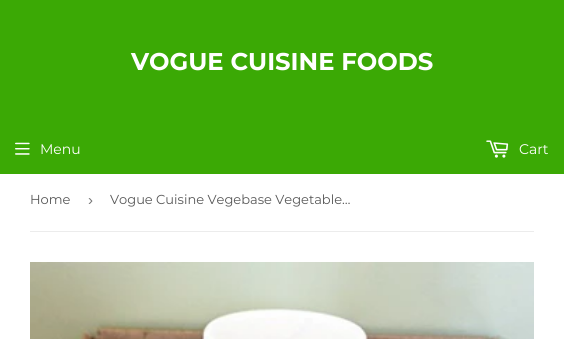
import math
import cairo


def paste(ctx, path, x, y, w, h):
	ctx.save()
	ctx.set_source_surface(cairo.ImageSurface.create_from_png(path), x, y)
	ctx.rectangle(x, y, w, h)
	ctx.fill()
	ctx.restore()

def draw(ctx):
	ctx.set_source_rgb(1, 1, 1)
	ctx.paint()
	ctx.set_source_rgb(0.231, 0.663, 0.02)
	ctx.rectangle(0, 0, 564, 174)
	ctx.fill()
	ctx.select_font_face('Montserrat', cairo.FONT_SLANT_NORMAL, cairo.FONT_WEIGHT_BOLD)
	ctx.set_font_size(24.25)
	ctx.set_source_rgb(1, 1, 1)
	ctx.move_to(131, 70)
	ctx.show_text('VOGUE CUISINE FOODS')
	paste(ctx, 'media/1.png', 15, 142, 15, 13)
	ctx.select_font_face('Montserrat')
	ctx.set_font_size(14)
	ctx.move_to(40, 154)
	ctx.show_text('Menu')
	paste(ctx, 'media/2.png', 486, 140, 23, 18)
	ctx.move_to(519, 154)
	ctx.show_text('Cart')
	ctx.set_source_rgb(0.925, 0.925, 0.925)
	ctx.rectangle(30, 231, 504, 1)
	ctx.fill()
	ctx.set_font_size(13)
	ctx.set_source_rgb(0.345, 0.345, 0.345)
	ctx.move_to(30, 204)
	ctx.show_text('Home')
	ctx.select_font_face('Liberation Sans')
	ctx.set_font_size(15)
	ctx.set_source_rgb(0.463, 0.463, 0.463)
	ctx.move_to(88, 205)
	ctx.show_text('›')
	ctx.select_font_face('Montserrat')
	ctx.set_font_size(13)
	ctx.set_source_rgb(0.345, 0.345, 0.345)
	ctx.move_to(110, 204)
	ctx.show_text('Vogue Cuisine Vegebase Vegetable…')
	paste(ctx, 'media/3.png', 30, 262, 504, 77)


surface = cairo.ImageSurface(cairo.FORMAT_RGB24, 564, 339)
ctx = cairo.Context(surface)
options = cairo.FontOptions()
options.set_hint_metrics(cairo.HINT_METRICS_OFF)
options.set_hint_style(cairo.HINT_STYLE_NONE)
ctx.set_font_options(options)
ctx.set_miter_limit(4)
draw(ctx)
surface.write_to_png('image.png')
